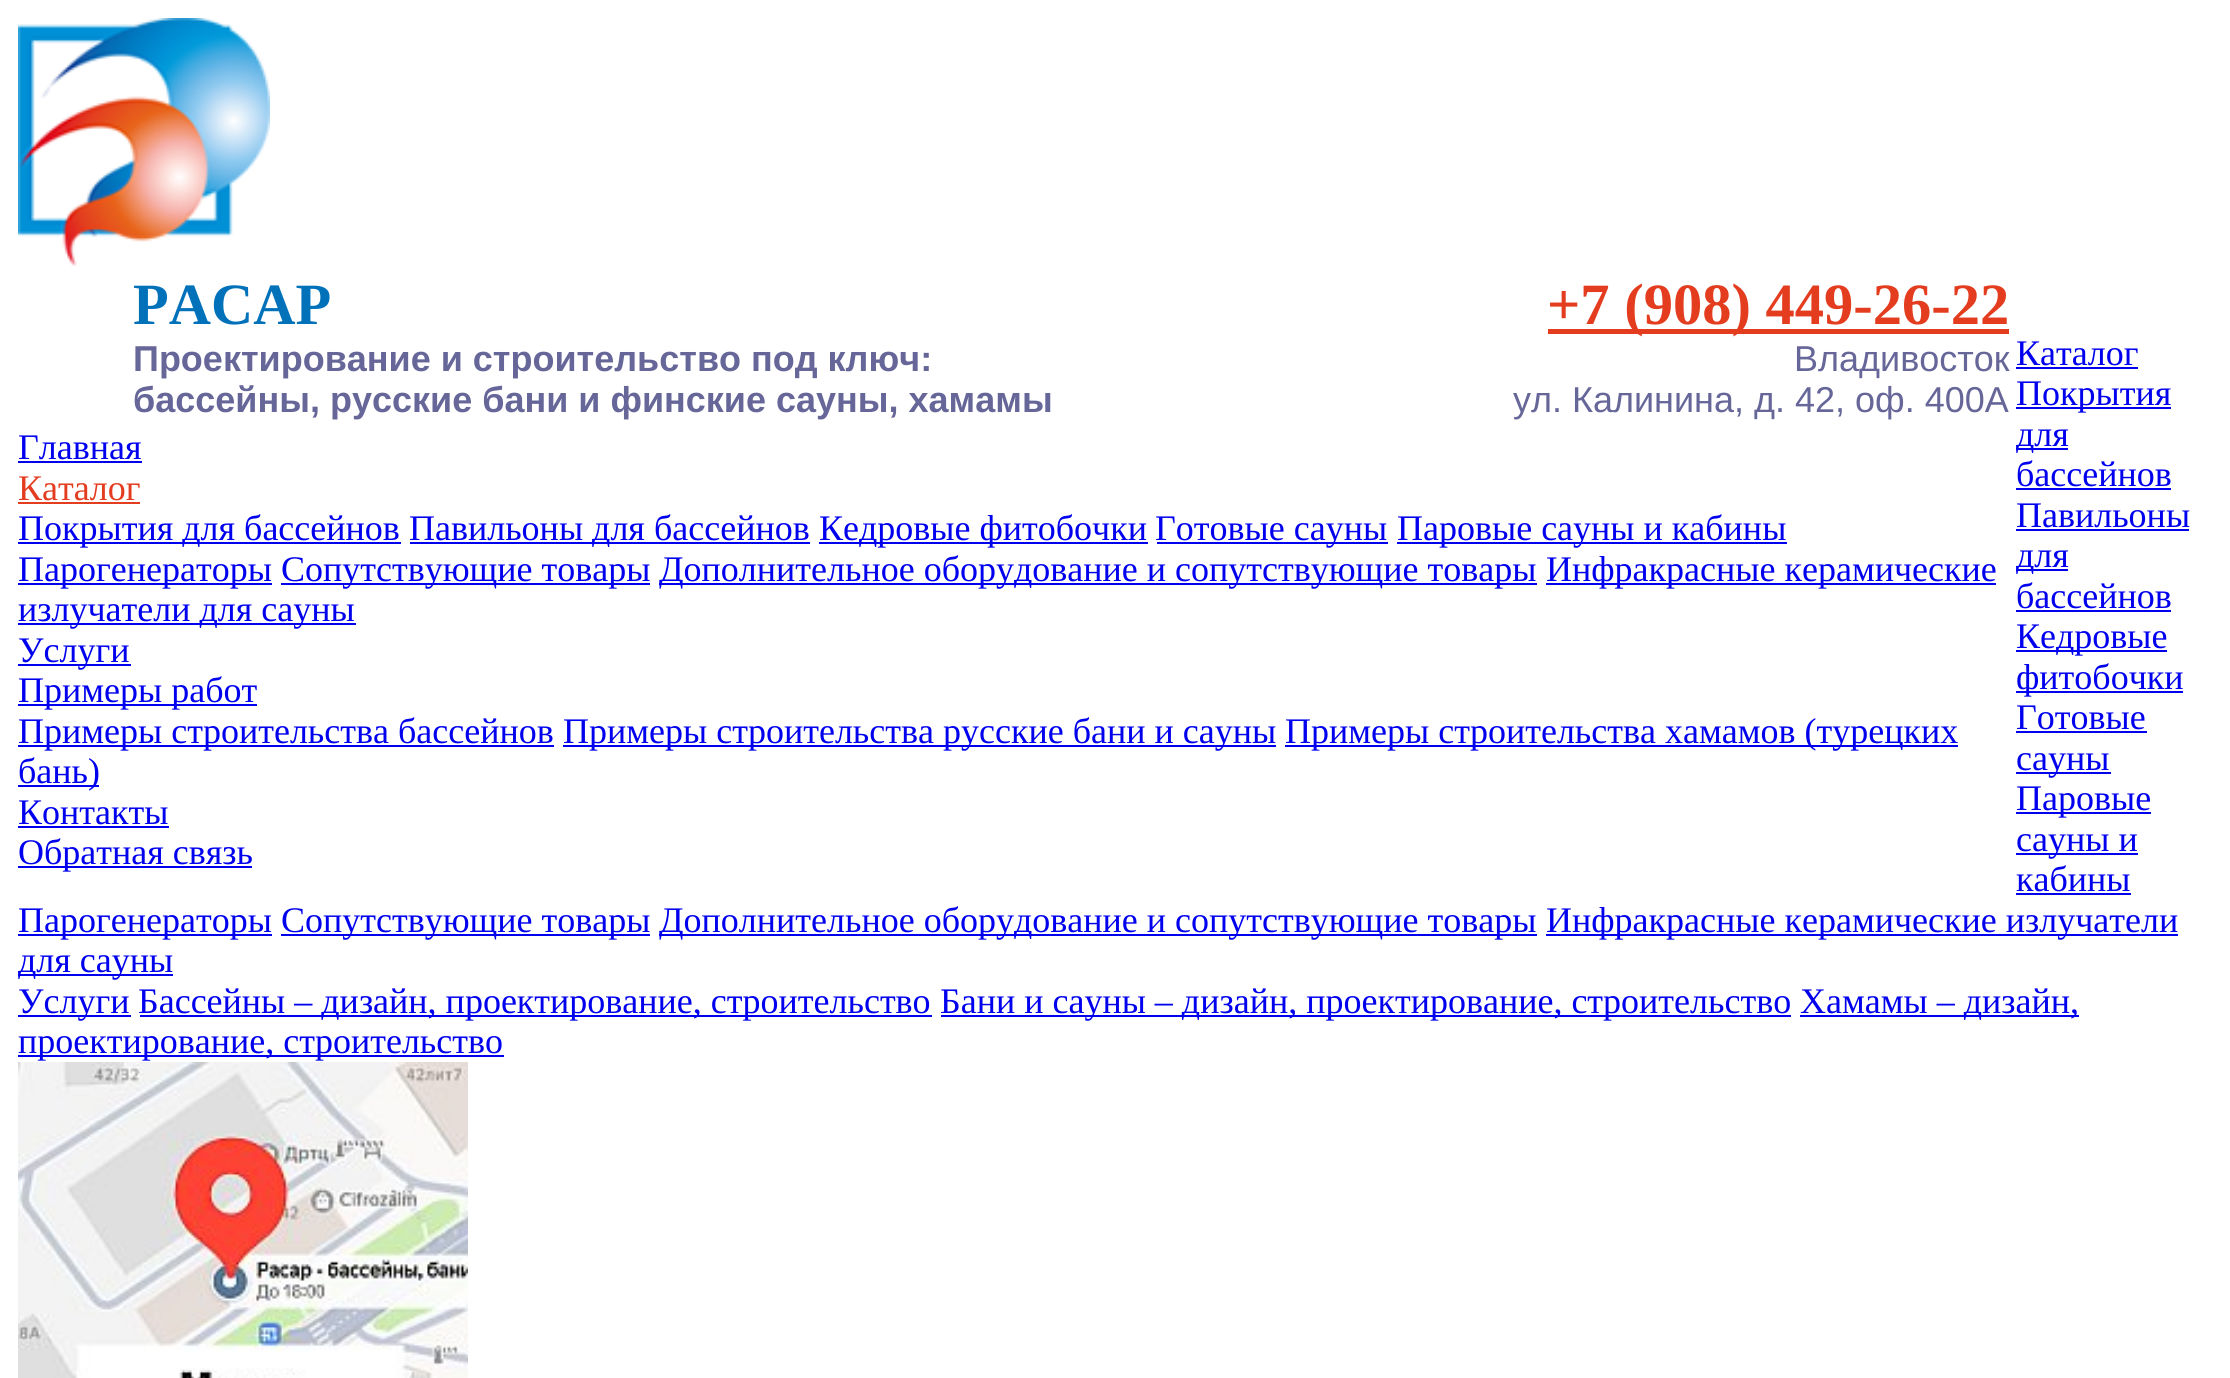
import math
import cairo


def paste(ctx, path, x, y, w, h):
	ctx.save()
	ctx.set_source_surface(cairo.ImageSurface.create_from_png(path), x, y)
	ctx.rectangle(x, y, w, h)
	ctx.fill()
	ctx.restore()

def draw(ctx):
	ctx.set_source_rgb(1, 1, 1)
	ctx.paint()
	paste(ctx, 'media/1.png', 18, 18, 252, 248)
	ctx.select_font_face('Liberation Serif', cairo.FONT_SLANT_NORMAL, cairo.FONT_WEIGHT_BOLD)
	ctx.set_font_size(58.5)
	ctx.set_source_rgb(0.004, 0.447, 0.729)
	ctx.move_to(133, 324)
	ctx.show_text('РАСАР')
	ctx.select_font_face('Liberation Sans', cairo.FONT_SLANT_NORMAL, cairo.FONT_WEIGHT_BOLD)
	ctx.set_font_size(36)
	ctx.set_source_rgb(0.4, 0.4, 0.6)
	ctx.move_to(133, 371)
	ctx.show_text('Проектирование и строительство под ключ:')
	ctx.move_to(133, 412)
	ctx.show_text('бассейны, русские бани и финские сауны, хамамы')
	ctx.set_source_rgb(0.89, 0.235, 0.122)
	ctx.rectangle(1548, 329, 461, 5)
	ctx.fill()
	ctx.select_font_face('Liberation Serif', cairo.FONT_SLANT_NORMAL, cairo.FONT_WEIGHT_BOLD)
	ctx.set_font_size(58.5)
	ctx.move_to(1547, 324)
	ctx.show_text('+7 (908) 449-26-22')
	ctx.select_font_face('Liberation Sans')
	ctx.set_font_size(36)
	ctx.set_source_rgb(0.4, 0.4, 0.6)
	ctx.move_to(1794, 371)
	ctx.show_text('Владивосток')
	ctx.move_to(1513, 412)
	ctx.show_text('ул. Калинина, д. 42, оф. 400А')
	ctx.select_font_face('Liberation Serif')
	ctx.set_source_rgb(0, 0, 0.933)
	ctx.move_to(18, 459)
	ctx.show_text('Главная')
	ctx.rectangle(18, 461, 124, 2)
	ctx.fill()
	ctx.set_source_rgb(0.89, 0.235, 0.122)
	ctx.move_to(18, 500)
	ctx.show_text('Каталог')
	ctx.rectangle(18, 502, 122, 2)
	ctx.fill()
	ctx.set_source_rgb(0, 0, 0.933)
	ctx.rectangle(18, 542, 383, 2)
	ctx.fill()
	ctx.move_to(18, 540)
	ctx.show_text('Покрытия для бассейнов')
	ctx.rectangle(410, 542, 400, 2)
	ctx.fill()
	ctx.move_to(409, 540)
	ctx.show_text('Павильоны для бассейнов')
	ctx.rectangle(819, 542, 329, 2)
	ctx.fill()
	ctx.move_to(819, 540)
	ctx.show_text('Кедровые фитобочки')
	ctx.rectangle(1157, 542, 231, 2)
	ctx.fill()
	ctx.move_to(1155, 540)
	ctx.show_text('Готовые сауны')
	ctx.rectangle(1397, 542, 390, 2)
	ctx.fill()
	ctx.move_to(1397, 540)
	ctx.show_text('Паровые сауны и кабины')
	ctx.rectangle(18, 583, 254, 2)
	ctx.fill()
	ctx.move_to(18, 581)
	ctx.show_text('Парогенераторы')
	ctx.rectangle(281, 583, 369, 2)
	ctx.fill()
	ctx.move_to(281, 581)
	ctx.show_text('Сопутствующие товары')
	ctx.rectangle(659, 583, 878, 2)
	ctx.fill()
	ctx.move_to(659, 581)
	ctx.show_text('Дополнительное оборудование и сопутствующие товары')
	ctx.rectangle(1546, 583, 450, 2)
	ctx.fill()
	ctx.move_to(1546, 581)
	ctx.show_text('Инфракрасные керамические')
	ctx.rectangle(18, 623, 338, 2)
	ctx.fill()
	ctx.move_to(18, 621)
	ctx.show_text('излучатели для сауны')
	ctx.rectangle(18, 664, 113, 2)
	ctx.fill()
	ctx.move_to(18, 662)
	ctx.show_text('Услуги')
	ctx.rectangle(18, 704, 239, 2)
	ctx.fill()
	ctx.move_to(18, 702)
	ctx.show_text('Примеры работ')
	ctx.rectangle(18, 745, 536, 2)
	ctx.fill()
	ctx.move_to(18, 743)
	ctx.show_text('Примеры строительства бассейнов')
	ctx.rectangle(563, 745, 713, 2)
	ctx.fill()
	ctx.move_to(563, 743)
	ctx.show_text('Примеры строительства русские бани и сауны')
	ctx.rectangle(1285, 745, 673, 2)
	ctx.fill()
	ctx.move_to(1285, 743)
	ctx.show_text('Примеры строительства хамамов (турецких')
	ctx.rectangle(18, 785, 81, 2)
	ctx.fill()
	ctx.move_to(18, 783)
	ctx.show_text('бань)')
	ctx.move_to(18, 824)
	ctx.show_text('Контакты')
	ctx.rectangle(18, 826, 151, 2)
	ctx.fill()
	ctx.rectangle(18, 866, 234, 2)
	ctx.fill()
	ctx.move_to(18, 864)
	ctx.show_text('Обратная связь')
	ctx.move_to(2016, 365)
	ctx.show_text('Каталог')
	ctx.rectangle(2016, 367, 122, 2)
	ctx.fill()
	ctx.rectangle(2016, 407, 155, 2)
	ctx.fill()
	ctx.move_to(2016, 405)
	ctx.show_text('Покрытия')
	ctx.rectangle(2016, 448, 52, 2)
	ctx.fill()
	ctx.move_to(2016, 446)
	ctx.show_text('для')
	ctx.move_to(2016, 486)
	ctx.show_text('бассейнов')
	ctx.rectangle(2016, 488, 155, 2)
	ctx.fill()
	ctx.move_to(2016, 527)
	ctx.show_text('Павильоны')
	ctx.rectangle(2016, 529, 173, 2)
	ctx.fill()
	ctx.rectangle(2016, 569, 52, 2)
	ctx.fill()
	ctx.move_to(2016, 567)
	ctx.show_text('для')
	ctx.move_to(2016, 608)
	ctx.show_text('бассейнов')
	ctx.rectangle(2016, 610, 155, 2)
	ctx.fill()
	ctx.rectangle(2016, 650, 151, 2)
	ctx.fill()
	ctx.move_to(2016, 648)
	ctx.show_text('Кедровые')
	ctx.rectangle(2016, 691, 167, 2)
	ctx.fill()
	ctx.move_to(2016, 689)
	ctx.show_text('фитобочки')
	ctx.move_to(2016, 729)
	ctx.show_text('Готовые')
	ctx.rectangle(2016, 731, 131, 2)
	ctx.fill()
	ctx.rectangle(2016, 772, 95, 2)
	ctx.fill()
	ctx.move_to(2016, 770)
	ctx.show_text('сауны')
	ctx.rectangle(2016, 812, 135, 2)
	ctx.fill()
	ctx.move_to(2016, 810)
	ctx.show_text('Паровые')
	ctx.rectangle(2016, 853, 122, 2)
	ctx.fill()
	ctx.move_to(2016, 851)
	ctx.show_text('сауны и')
	ctx.move_to(2016, 891)
	ctx.show_text('кабины')
	ctx.rectangle(2016, 893, 115, 2)
	ctx.fill()
	ctx.rectangle(18, 934, 254, 2)
	ctx.fill()
	ctx.move_to(18, 932)
	ctx.show_text('Парогенераторы')
	ctx.rectangle(281, 934, 369, 2)
	ctx.fill()
	ctx.move_to(281, 932)
	ctx.show_text('Сопутствующие товары')
	ctx.rectangle(659, 934, 878, 2)
	ctx.fill()
	ctx.move_to(659, 932)
	ctx.show_text('Дополнительное оборудование и сопутствующие товары')
	ctx.rectangle(1546, 934, 632, 2)
	ctx.fill()
	ctx.move_to(1546, 932)
	ctx.show_text('Инфракрасные керамические излучатели')
	ctx.rectangle(18, 974, 155, 2)
	ctx.fill()
	ctx.move_to(18, 972)
	ctx.show_text('для сауны')
	ctx.rectangle(18, 1015, 113, 2)
	ctx.fill()
	ctx.move_to(18, 1013)
	ctx.show_text('Услуги')
	ctx.rectangle(140, 1015, 792, 2)
	ctx.fill()
	ctx.move_to(138, 1013)
	ctx.show_text('Бассейны – дизайн, проектирование, строительство')
	ctx.rectangle(941, 1015, 850, 2)
	ctx.fill()
	ctx.move_to(940, 1013)
	ctx.show_text('Бани и сауны – дизайн, проектирование, строительство')
	ctx.rectangle(1800, 1015, 279, 2)
	ctx.fill()
	ctx.move_to(1800, 1013)
	ctx.show_text('Хамамы – дизайн,')
	ctx.rectangle(18, 1055, 486, 2)
	ctx.fill()
	ctx.move_to(18, 1053)
	ctx.show_text('проектирование, строительство')
	paste(ctx, 'media/2.png', 18, 1062, 450, 316)


surface = cairo.ImageSurface(cairo.FORMAT_RGB24, 2230, 1378)
ctx = cairo.Context(surface)
options = cairo.FontOptions()
options.set_hint_metrics(cairo.HINT_METRICS_OFF)
options.set_hint_style(cairo.HINT_STYLE_NONE)
ctx.set_font_options(options)
ctx.set_miter_limit(4)
draw(ctx)
surface.write_to_png('image.png')
